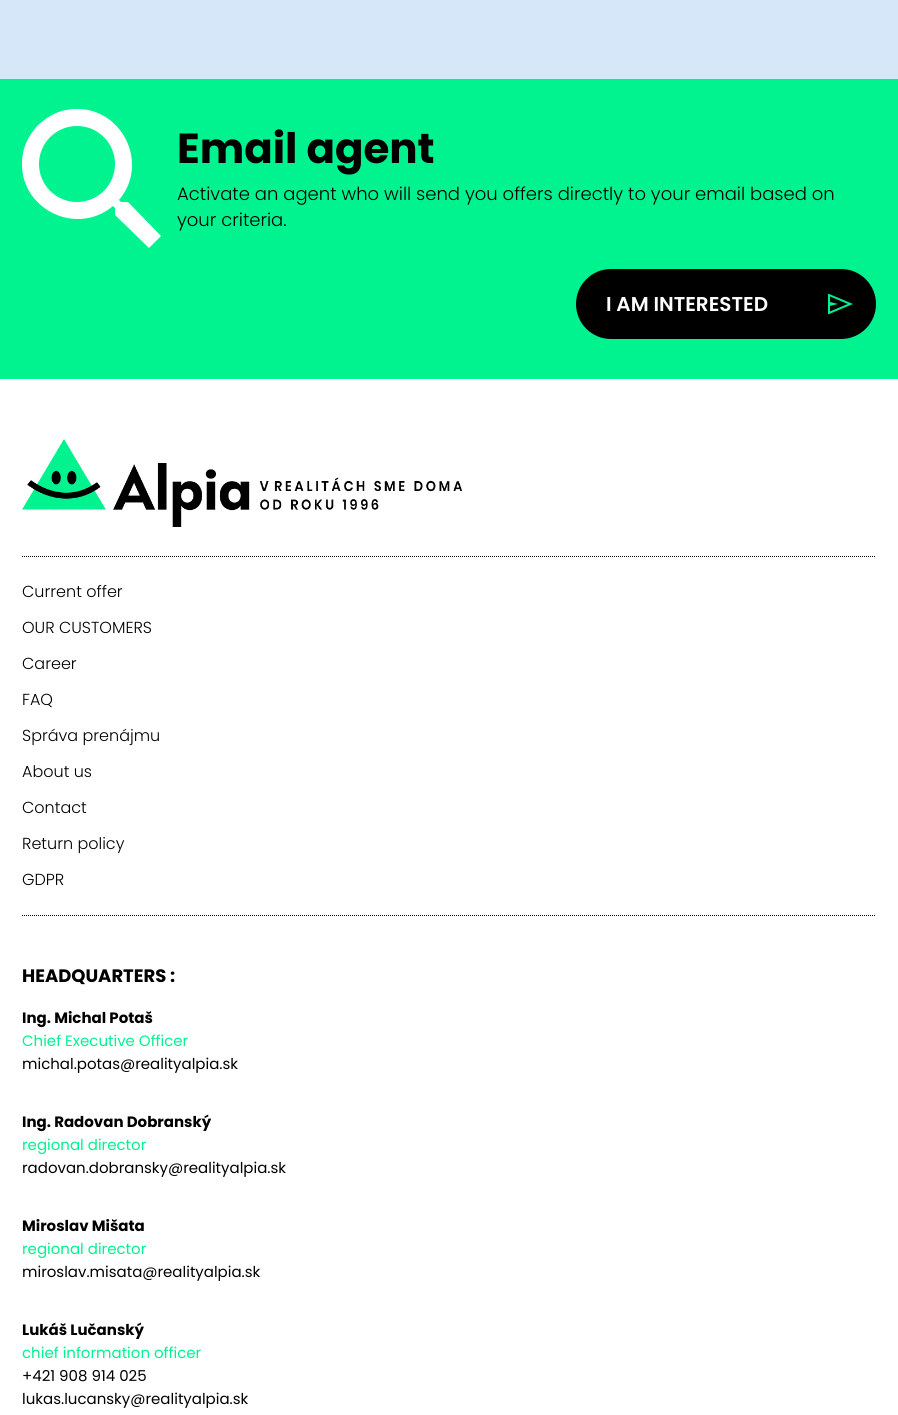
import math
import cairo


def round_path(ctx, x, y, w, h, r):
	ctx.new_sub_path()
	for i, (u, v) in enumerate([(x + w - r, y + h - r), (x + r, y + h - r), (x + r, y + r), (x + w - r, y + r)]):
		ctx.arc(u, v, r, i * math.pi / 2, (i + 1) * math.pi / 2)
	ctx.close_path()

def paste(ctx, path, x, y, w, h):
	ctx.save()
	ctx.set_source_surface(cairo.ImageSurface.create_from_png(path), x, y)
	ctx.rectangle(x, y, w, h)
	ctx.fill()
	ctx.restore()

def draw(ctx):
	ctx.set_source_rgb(0, 0.953, 0.557)
	ctx.paint()
	ctx.set_source_rgb(0.835, 0.906, 0.969)
	ctx.rectangle(0, 0, 898, 79)
	ctx.fill()
	ctx.save()
	ctx.rectangle(22, 109, 140, 140)
	ctx.clip()
	ctx.set_source_rgb(1, 1, 1)
	ctx.new_path()
	ctx.move_to(128, 202)
	ctx.line_to(121, 202)
	ctx.line_to(119, 200)
	ctx.curve_to(152, 161, 118, 100, 66, 110)
	ctx.curve_to(55, 112, 46, 118, 38, 125)
	ctx.curve_to(31, 133, 25, 142, 23, 153)
	ctx.curve_to(13, 205, 74, 239, 113, 206)
	ctx.line_to(115, 208)
	ctx.line_to(115, 215)
	ctx.line_to(149, 248)
	ctx.line_to(161, 236)
	ctx.close_path()
	ctx.move_to(77, 202)
	ctx.curve_to(56, 202, 39, 185, 39, 164)
	ctx.curve_to(39, 143, 56, 126, 77, 126)
	ctx.curve_to(98, 126, 115, 143, 115, 164)
	ctx.curve_to(115, 185, 98, 202, 77, 202)
	ctx.close_path()
	ctx.fill()
	ctx.restore()
	ctx.select_font_face('Poppins', cairo.FONT_SLANT_NORMAL, cairo.FONT_WEIGHT_BOLD)
	ctx.set_font_size(42)
	ctx.set_source_rgb(0, 0, 0)
	ctx.move_to(177, 163)
	ctx.show_text('Email agent')
	ctx.select_font_face('Poppins Light')
	ctx.set_font_size(18)
	ctx.move_to(177, 200)
	ctx.show_text('Activate an agent who will send you offers directly to your email based on')
	ctx.move_to(177, 226)
	ctx.show_text('your criteria.')
	round_path(ctx, 576, 269, 300, 70, 35)
	ctx.fill()
	ctx.select_font_face('Poppins SemiBold')
	ctx.set_font_size(20)
	ctx.set_source_rgb(1, 1, 1)
	ctx.move_to(606, 311)
	ctx.show_text('I AM INTERESTED')
	paste(ctx, 'media/1.png', 828, 294, 25, 21)
	ctx.rectangle(0, 379, 898, 1036)
	ctx.fill()
	paste(ctx, 'media/2.png', 22, 439, 440, 88)
	ctx.new_path()
	ctx.move_to(22, 556.5)
	ctx.line_to(876, 556.5)
	ctx.set_source_rgb(0, 0, 0)
	ctx.set_line_width(1)
	ctx.set_dash([1, 1])
	ctx.stroke()
	ctx.new_path()
	ctx.move_to(22, 915.5)
	ctx.line_to(876, 915.5)
	ctx.stroke()
	ctx.select_font_face('Poppins Light')
	ctx.set_font_size(16)
	for x, y, s in [
		(22, 597, 'Current offer'),
		(22, 633, 'OUR CUSTOMERS'),
		(22, 669, 'Career'),
		(22, 705, 'FAQ'),
		(22, 741, 'Správa prenájmu'),
		(22, 777, 'About us'),
		(22, 813, 'Contact'),
		(22, 849, 'Return policy'),
		(22, 885, 'GDPR'),
	]:
		ctx.move_to(x, y)
		ctx.show_text(s)
	ctx.select_font_face('Poppins', cairo.FONT_SLANT_NORMAL, cairo.FONT_WEIGHT_BOLD)
	ctx.set_font_size(18)
	ctx.move_to(22, 982)
	ctx.show_text('HEADQUARTERS :')
	ctx.set_font_size(15)
	ctx.move_to(22, 1023)
	ctx.show_text('Ing. Michal Potaš')
	ctx.select_font_face('Poppins')
	ctx.set_source_rgb(0, 0.953, 0.557)
	ctx.move_to(22, 1046)
	ctx.show_text('Chief Executive Officer')
	ctx.set_source_rgb(0, 0, 0)
	ctx.move_to(22, 1069)
	ctx.show_text('michal.potas@realityalpia.sk')
	ctx.select_font_face('Poppins', cairo.FONT_SLANT_NORMAL, cairo.FONT_WEIGHT_BOLD)
	ctx.move_to(22, 1127)
	ctx.show_text('Ing. Radovan Dobranský')
	ctx.select_font_face('Poppins')
	ctx.set_source_rgb(0, 0.953, 0.557)
	ctx.move_to(22, 1150)
	ctx.show_text('regional director')
	ctx.set_source_rgb(0, 0, 0)
	ctx.move_to(22, 1173)
	ctx.show_text('radovan.dobransky@realityalpia.sk')
	ctx.select_font_face('Poppins', cairo.FONT_SLANT_NORMAL, cairo.FONT_WEIGHT_BOLD)
	ctx.move_to(22, 1231)
	ctx.show_text('Miroslav Mišata')
	ctx.select_font_face('Poppins')
	ctx.set_source_rgb(0, 0.953, 0.557)
	ctx.move_to(22, 1254)
	ctx.show_text('regional director')
	ctx.set_source_rgb(0, 0, 0)
	ctx.move_to(22, 1277)
	ctx.show_text('miroslav.misata@realityalpia.sk')
	ctx.select_font_face('Poppins', cairo.FONT_SLANT_NORMAL, cairo.FONT_WEIGHT_BOLD)
	ctx.move_to(22, 1335)
	ctx.show_text('Lukáš Lučanský')
	ctx.select_font_face('Poppins')
	ctx.set_source_rgb(0, 0.953, 0.557)
	ctx.move_to(22, 1358)
	ctx.show_text('chief information officer')
	ctx.set_source_rgb(0, 0, 0)
	ctx.move_to(22, 1381)
	ctx.show_text('+421 908 914 025')
	ctx.move_to(22, 1404)
	ctx.show_text('lukas.lucansky@realityalpia.sk')


surface = cairo.ImageSurface(cairo.FORMAT_RGB24, 898, 1415)
ctx = cairo.Context(surface)
options = cairo.FontOptions()
options.set_hint_metrics(cairo.HINT_METRICS_OFF)
options.set_hint_style(cairo.HINT_STYLE_NONE)
ctx.set_font_options(options)
ctx.set_miter_limit(4)
draw(ctx)
surface.write_to_png('image.png')
